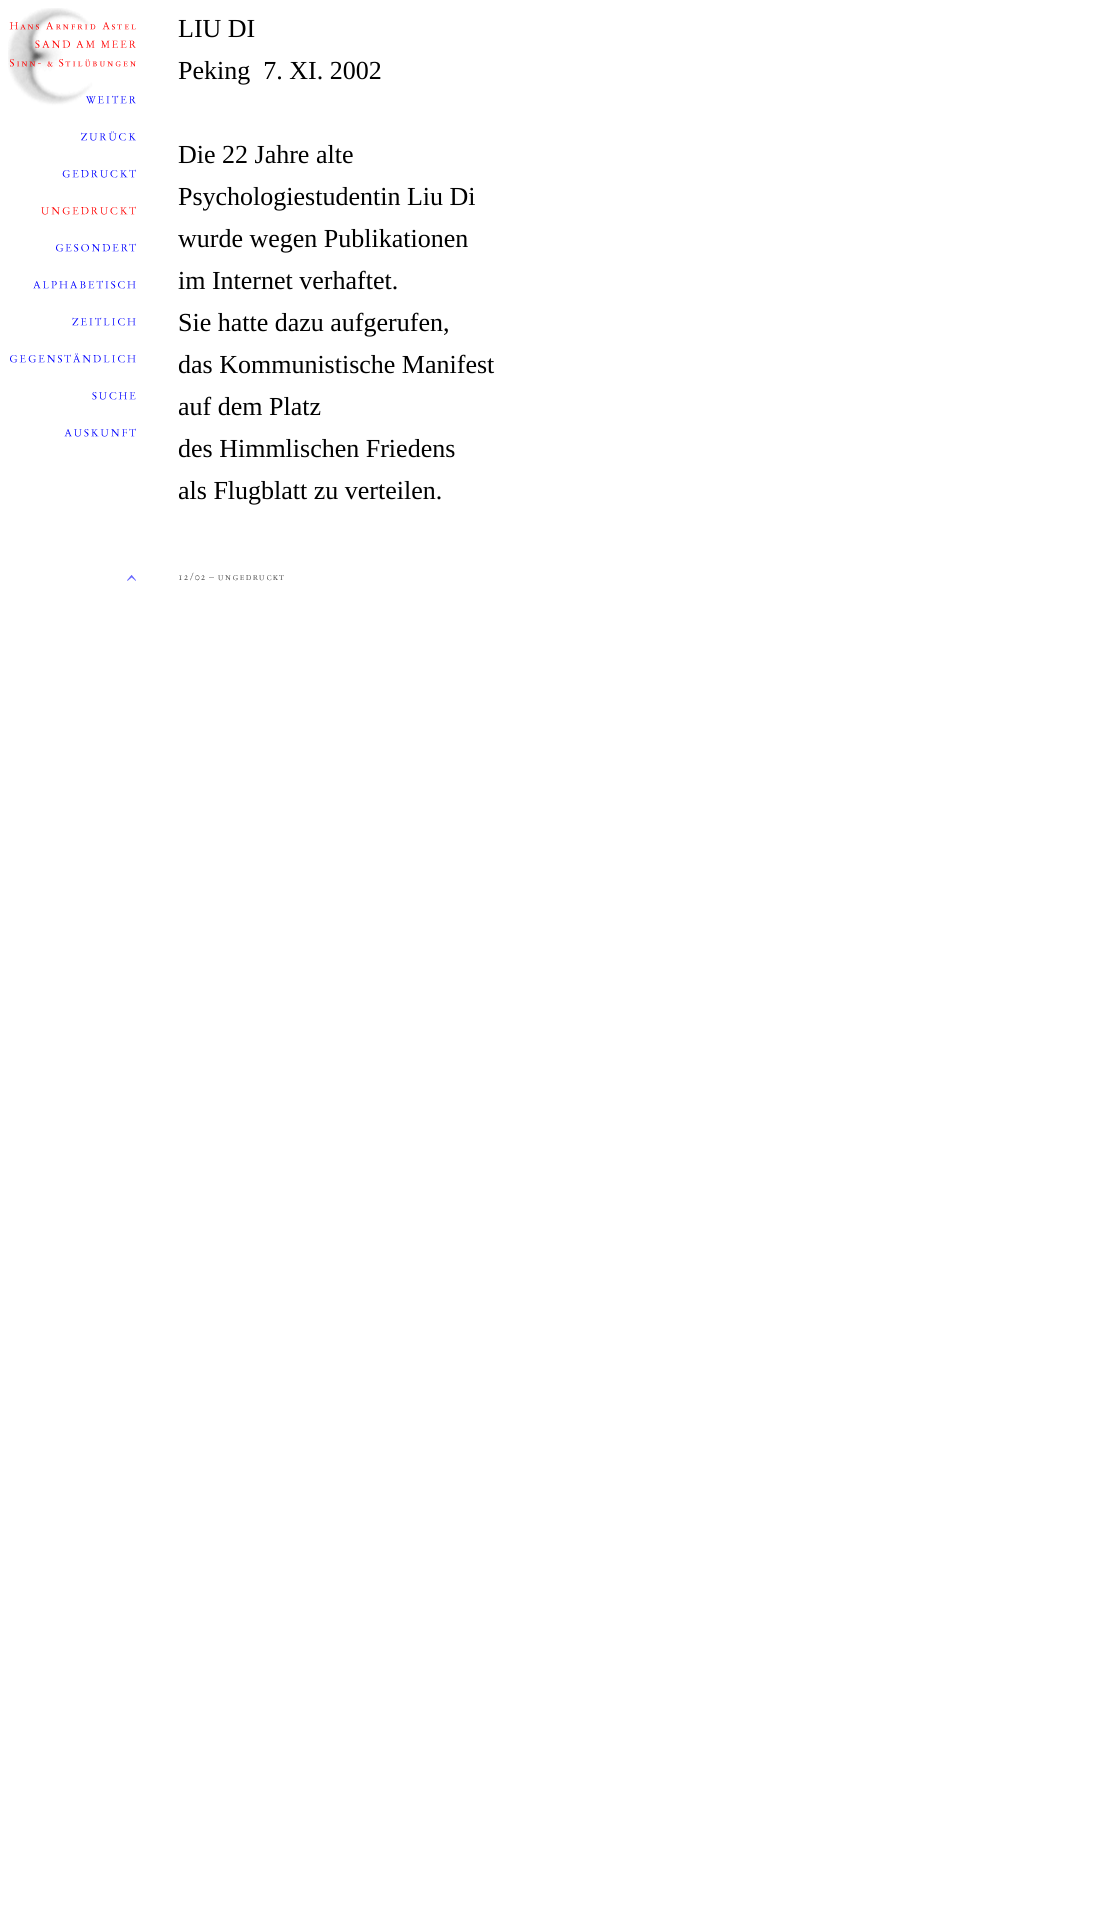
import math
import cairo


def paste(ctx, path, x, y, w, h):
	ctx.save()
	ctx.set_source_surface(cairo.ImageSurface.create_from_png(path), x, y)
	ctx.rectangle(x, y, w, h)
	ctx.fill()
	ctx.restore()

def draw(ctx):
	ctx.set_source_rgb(1, 1, 1)
	ctx.paint()
	paste(ctx, 'media/1.png', 8, 8, 128, 429)
	ctx.select_font_face('Liberation Serif')
	ctx.set_font_size(26)
	ctx.set_source_rgb(0, 0, 0)
	for x, y, s in [
		(178, 37, 'LIU DI'),
		(178, 79, 'Peking  7. XI. 2002'),
		(178, 163, 'Die 22 Jahre alte'),
		(178, 205, 'Psychologiestudentin Liu Di'),
		(178, 247, 'wurde wegen Publikationen'),
		(178, 289, 'im Internet verhaftet.'),
		(178, 331, 'Sie hatte dazu aufgerufen,'),
		(178, 373, 'das Kommunistische Manifest'),
		(178, 415, 'auf dem Platz'),
		(178, 457, 'des Himmlischen Friedens'),
		(178, 499, 'als Flugblatt zu verteilen.'),
	]:
		ctx.move_to(x, y)
		ctx.show_text(s)
	paste(ctx, 'media/2.png', 127, 575, 9, 6)
	paste(ctx, 'media/3.png', 179, 572, 105, 9)


surface = cairo.ImageSurface(cairo.FORMAT_RGB24, 1100, 1924)
ctx = cairo.Context(surface)
options = cairo.FontOptions()
options.set_hint_metrics(cairo.HINT_METRICS_OFF)
options.set_hint_style(cairo.HINT_STYLE_NONE)
ctx.set_font_options(options)
ctx.set_miter_limit(4)
draw(ctx)
surface.write_to_png('image.png')
